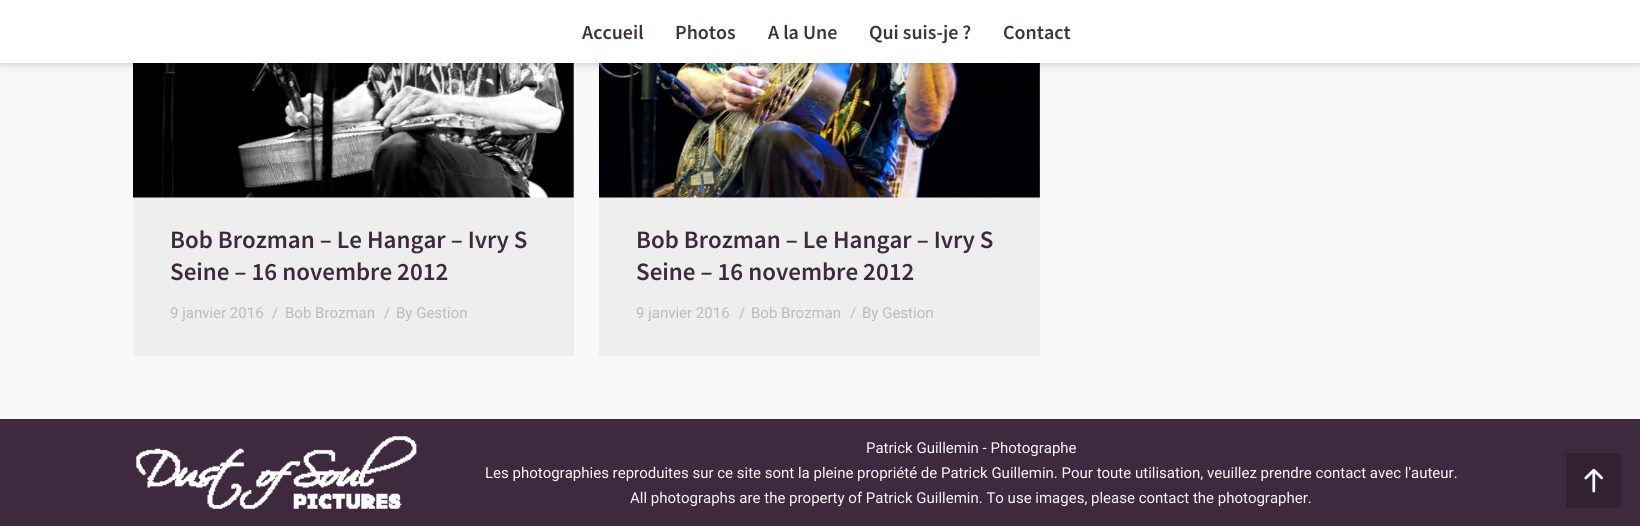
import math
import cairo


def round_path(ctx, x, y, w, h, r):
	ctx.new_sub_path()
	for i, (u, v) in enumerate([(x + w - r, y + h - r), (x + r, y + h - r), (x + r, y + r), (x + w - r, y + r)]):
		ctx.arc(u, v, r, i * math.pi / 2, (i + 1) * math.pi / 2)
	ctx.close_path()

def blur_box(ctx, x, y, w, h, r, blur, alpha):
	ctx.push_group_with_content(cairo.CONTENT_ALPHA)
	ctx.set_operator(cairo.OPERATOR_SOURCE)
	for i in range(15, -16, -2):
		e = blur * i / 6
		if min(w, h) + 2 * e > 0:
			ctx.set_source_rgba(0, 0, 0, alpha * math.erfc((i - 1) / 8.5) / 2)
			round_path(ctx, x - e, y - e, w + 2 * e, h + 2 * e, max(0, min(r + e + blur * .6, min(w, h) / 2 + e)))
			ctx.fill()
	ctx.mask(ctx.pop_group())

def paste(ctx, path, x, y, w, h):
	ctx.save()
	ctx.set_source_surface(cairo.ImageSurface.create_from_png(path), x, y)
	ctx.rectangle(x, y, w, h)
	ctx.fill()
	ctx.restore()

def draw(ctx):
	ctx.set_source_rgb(0.973, 0.969, 0.969)
	ctx.paint()
	ctx.set_source_rgb(0.937, 0.933, 0.937)
	ctx.rectangle(133, 63, 441, 293)
	ctx.fill()
	paste(ctx, 'media/1.png', 133, 63, 441, 135)
	ctx.rectangle(599, 63, 441, 293)
	ctx.fill()
	paste(ctx, 'media/2.png', 599, 63, 441, 135)
	ctx.set_source_rgb(0, 0, 0)
	blur_box(ctx, 0, 0, 1640, 63, 0, 4, 0.25)
	ctx.set_source_rgb(1, 1, 1)
	ctx.rectangle(0, 0, 1640, 63)
	ctx.fill()
	ctx.select_font_face('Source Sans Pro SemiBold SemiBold')
	ctx.set_font_size(20)
	ctx.set_source_rgb(0.259, 0.192, 0.251)
	for x, y, s in [
		(582, 39, 'Accueil'),
		(675, 39, 'Photos'),
		(768, 39, 'A la Une'),
		(869, 39, 'Qui suis-je ?'),
		(1003, 39, 'Contact'),
	]:
		ctx.move_to(x, y)
		ctx.show_text(s)
	ctx.set_font_size(25)
	ctx.set_source_rgb(0.247, 0.161, 0.247)
	ctx.move_to(170, 248)
	ctx.show_text('Bob Brozman – Le Hangar – Ivry S')
	ctx.move_to(170, 280)
	ctx.show_text('Seine – 16 novembre 2012')
	ctx.select_font_face('Roboto')
	ctx.set_font_size(15)
	ctx.set_source_rgb(0.741, 0.725, 0.737)
	for x, y, s in [
		(170, 318, '9 janvier 2016'),
		(272, 318, '/'),
		(285, 318, 'Bob Brozman'),
		(384, 318, '/'),
		(396, 318, 'By Gestion'),
	]:
		ctx.move_to(x, y)
		ctx.show_text(s)
	ctx.select_font_face('Source Sans Pro SemiBold SemiBold')
	ctx.set_font_size(25)
	ctx.set_source_rgb(0.247, 0.161, 0.247)
	ctx.move_to(636, 248)
	ctx.show_text('Bob Brozman – Le Hangar – Ivry S')
	ctx.move_to(636, 280)
	ctx.show_text('Seine – 16 novembre 2012')
	ctx.select_font_face('Roboto')
	ctx.set_font_size(15)
	ctx.set_source_rgb(0.741, 0.725, 0.737)
	for x, y, s in [
		(636, 318, '9 janvier 2016'),
		(739, 318, '/'),
		(751, 318, 'Bob Brozman'),
		(850, 318, '/'),
		(862, 318, 'By Gestion'),
	]:
		ctx.move_to(x, y)
		ctx.show_text(s)
	ctx.set_source_rgb(0.247, 0.161, 0.247)
	ctx.rectangle(0, 419, 1640, 107)
	ctx.fill()
	paste(ctx, 'media/3.png', 136, 436, 281, 73)
	ctx.set_source_rgb(0.976, 0.965, 0.976)
	for x, y, s in [
		(866, 453, 'Patrick Guillemin - Photographe'),
		(485, 478, 'Les photographies reproduites sur ce site sont la pleine propriété de Patrick Guillemin. Pour toute utilisation, veuillez prendre contact avec l\'auteur.'),
		(630, 503, 'All photographs are the property of Patrick Guillemin. To use images, please contact the photographer.'),
	]:
		ctx.move_to(x, y)
		ctx.show_text(s)
	ctx.set_source_rgb(0.196, 0.129, 0.196)
	round_path(ctx, 1566, 453, 55, 55, 2.5)
	ctx.fill()
	paste(ctx, 'media/4.png', 1584, 468, 19, 25)


surface = cairo.ImageSurface(cairo.FORMAT_RGB24, 1640, 526)
ctx = cairo.Context(surface)
options = cairo.FontOptions()
options.set_hint_metrics(cairo.HINT_METRICS_OFF)
options.set_hint_style(cairo.HINT_STYLE_NONE)
ctx.set_font_options(options)
ctx.set_miter_limit(4)
draw(ctx)
surface.write_to_png('image.png')
